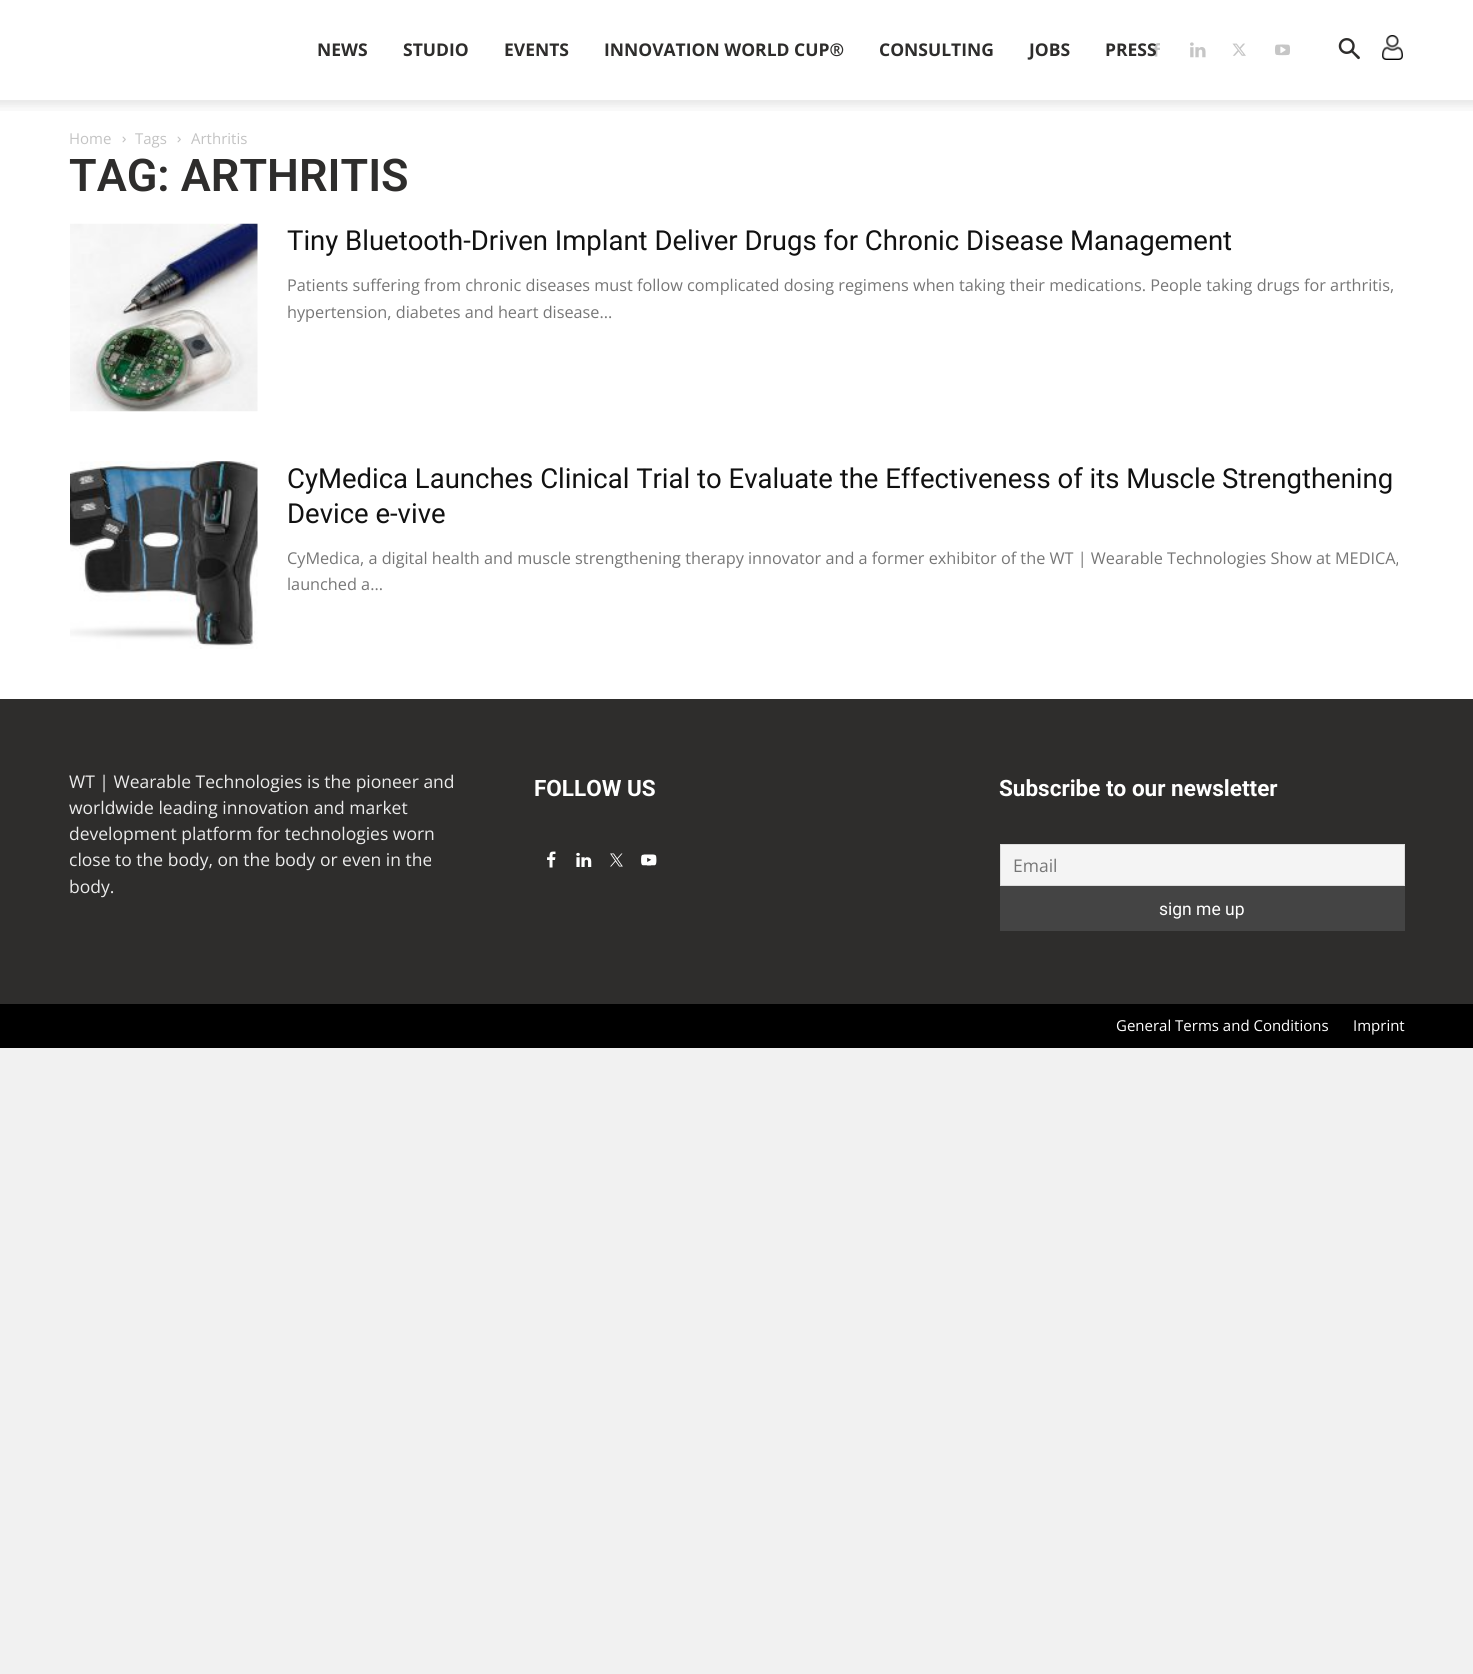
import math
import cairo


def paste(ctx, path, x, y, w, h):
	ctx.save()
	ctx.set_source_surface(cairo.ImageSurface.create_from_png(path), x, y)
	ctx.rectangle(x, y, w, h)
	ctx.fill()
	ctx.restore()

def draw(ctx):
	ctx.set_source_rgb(0.945, 0.945, 0.945)
	ctx.paint()
	ctx.set_source_rgb(1, 1, 1)
	ctx.rectangle(0, 0, 1473, 699)
	ctx.fill()
	ctx.select_font_face('Open Sans', cairo.FONT_SLANT_NORMAL, cairo.FONT_WEIGHT_BOLD)
	ctx.set_font_size(17.5)
	ctx.set_source_rgb(0.18, 0.176, 0.173)
	for x, y, s in [
		(317, 56, 'NEWS'),
		(403, 56, 'STUDIO'),
		(504, 56, 'EVENTS'),
		(604, 56, 'INNOVATION WORLD CUP®'),
		(879, 56, 'CONSULTING'),
		(1029, 56, 'JOBS'),
	]:
		ctx.move_to(x, y)
		ctx.show_text(s)
	paste(ctx, 'media/1.png', 1152, 43, 8, 14)
	ctx.move_to(1105, 56)
	ctx.show_text('PRESS')
	paste(ctx, 'media/2.png', 1190, 42, 16, 16)
	paste(ctx, 'media/3.png', 1232, 43, 14, 13)
	paste(ctx, 'media/4.png', 1275, 44, 15, 12)
	paste(ctx, 'media/5.png', 1338, 38, 22, 22)
	paste(ctx, 'media/6.png', 1382, 35, 21, 25)
	paste(ctx, 'media/7.png', 0, 100, 1473, 11)
	ctx.select_font_face('Open Sans')
	ctx.set_font_size(15)
	ctx.set_source_rgb(0.765, 0.765, 0.765)
	ctx.move_to(69, 144)
	ctx.show_text('Home')
	paste(ctx, 'media/8.png', 122, 136, 4, 7)
	ctx.move_to(135, 144)
	ctx.show_text('Tags')
	paste(ctx, 'media/8.png', 177, 136, 4, 7)
	ctx.move_to(191, 144)
	ctx.show_text('Arthritis')
	ctx.select_font_face('Roboto SemiBold')
	ctx.set_font_size(45)
	ctx.set_source_rgb(0.18, 0.176, 0.173)
	ctx.move_to(69, 191)
	ctx.show_text('TAG: ARTHRITIS')
	paste(ctx, 'media/9.png', 70, 223, 188, 189)
	ctx.select_font_face('Roboto')
	ctx.set_font_size(27.5)
	ctx.set_source_rgb(0.067, 0.067, 0.067)
	ctx.move_to(287, 250)
	ctx.show_text('Tiny Bluetooth-Driven Implant Deliver Drugs for Chronic Disease Management')
	ctx.select_font_face('Open Sans')
	ctx.set_font_size(16.25)
	ctx.set_source_rgb(0.463, 0.463, 0.463)
	ctx.move_to(287, 291)
	ctx.show_text('Patients suffering from chronic diseases must follow complicated dosing regimens when taking their medications. People taking drugs for arthritis,')
	ctx.move_to(287, 318)
	ctx.show_text('hypertension, diabetes and heart disease...')
	paste(ctx, 'media/10.png', 70, 461, 188, 188)
	ctx.select_font_face('Roboto')
	ctx.set_font_size(27.5)
	ctx.set_source_rgb(0.067, 0.067, 0.067)
	ctx.move_to(287, 488)
	ctx.show_text('CyMedica Launches Clinical Trial to Evaluate the Effectiveness of its Muscle Strengthening')
	ctx.move_to(287, 523)
	ctx.show_text('Device e-vive')
	ctx.select_font_face('Open Sans')
	ctx.set_font_size(16.25)
	ctx.set_source_rgb(0.463, 0.463, 0.463)
	ctx.move_to(287, 564)
	ctx.show_text('CyMedica, a digital health and muscle strengthening therapy innovator and a former exhibitor of the WT | Wearable Technologies Show at MEDICA,')
	ctx.move_to(287, 590)
	ctx.show_text('launched a...')
	ctx.set_source_rgb(0.18, 0.176, 0.173)
	ctx.rectangle(0, 699, 1473, 305)
	ctx.fill()
	ctx.set_font_size(17.5)
	ctx.set_source_rgb(0.918, 0.918, 0.918)
	for x, y, s in [
		(69, 788, 'WT | Wearable Technologies is the pioneer and'),
		(69, 814, 'worldwide leading innovation and market'),
		(69, 840, 'development platform for technologies worn'),
		(69, 866, 'close to the body, on the body or even in the'),
		(69, 893, 'body.'),
	]:
		ctx.move_to(x, y)
		ctx.show_text(s)
	ctx.select_font_face('Roboto', cairo.FONT_SLANT_NORMAL, cairo.FONT_WEIGHT_BOLD)
	ctx.set_font_size(22.5)
	ctx.set_source_rgb(1, 1, 1)
	ctx.move_to(534, 796)
	ctx.show_text('FOLLOW US')
	paste(ctx, 'media/11.png', 547, 851, 9, 17)
	paste(ctx, 'media/12.png', 576, 852, 16, 15)
	paste(ctx, 'media/13.png', 610, 853, 13, 14)
	paste(ctx, 'media/14.png', 641, 854, 16, 12)
	ctx.move_to(999, 796)
	ctx.show_text('Subscribe to our newsletter')
	ctx.set_source_rgb(0.957, 0.957, 0.957)
	ctx.rectangle(1000.5, 844.5, 404, 41)
	ctx.fill_preserve()
	ctx.set_source_rgb(0.867, 0.867, 0.867)
	ctx.set_line_width(1)
	ctx.stroke()
	ctx.select_font_face('Open Sans')
	ctx.set_font_size(17.5)
	ctx.set_source_rgb(0.463, 0.463, 0.463)
	ctx.move_to(1013, 872)
	ctx.show_text('Email')
	ctx.set_source_rgb(0.267, 0.267, 0.267)
	ctx.rectangle(1000, 886, 405, 45)
	ctx.fill()
	ctx.select_font_face('Roboto')
	ctx.set_source_rgb(1, 1, 1)
	ctx.move_to(1159, 915)
	ctx.show_text('sign me up')
	ctx.set_source_rgb(0, 0, 0)
	ctx.rectangle(0, 1004, 1473, 44)
	ctx.fill()
	ctx.select_font_face('Open Sans')
	ctx.set_font_size(15)
	ctx.set_source_rgb(1, 1, 1)
	ctx.move_to(1116, 1031)
	ctx.show_text('General Terms and Conditions')
	ctx.move_to(1353, 1031)
	ctx.show_text('Imprint')


surface = cairo.ImageSurface(cairo.FORMAT_RGB24, 1473, 1674)
ctx = cairo.Context(surface)
options = cairo.FontOptions()
options.set_hint_metrics(cairo.HINT_METRICS_OFF)
options.set_hint_style(cairo.HINT_STYLE_NONE)
ctx.set_font_options(options)
ctx.set_miter_limit(4)
draw(ctx)
surface.write_to_png('image.png')
